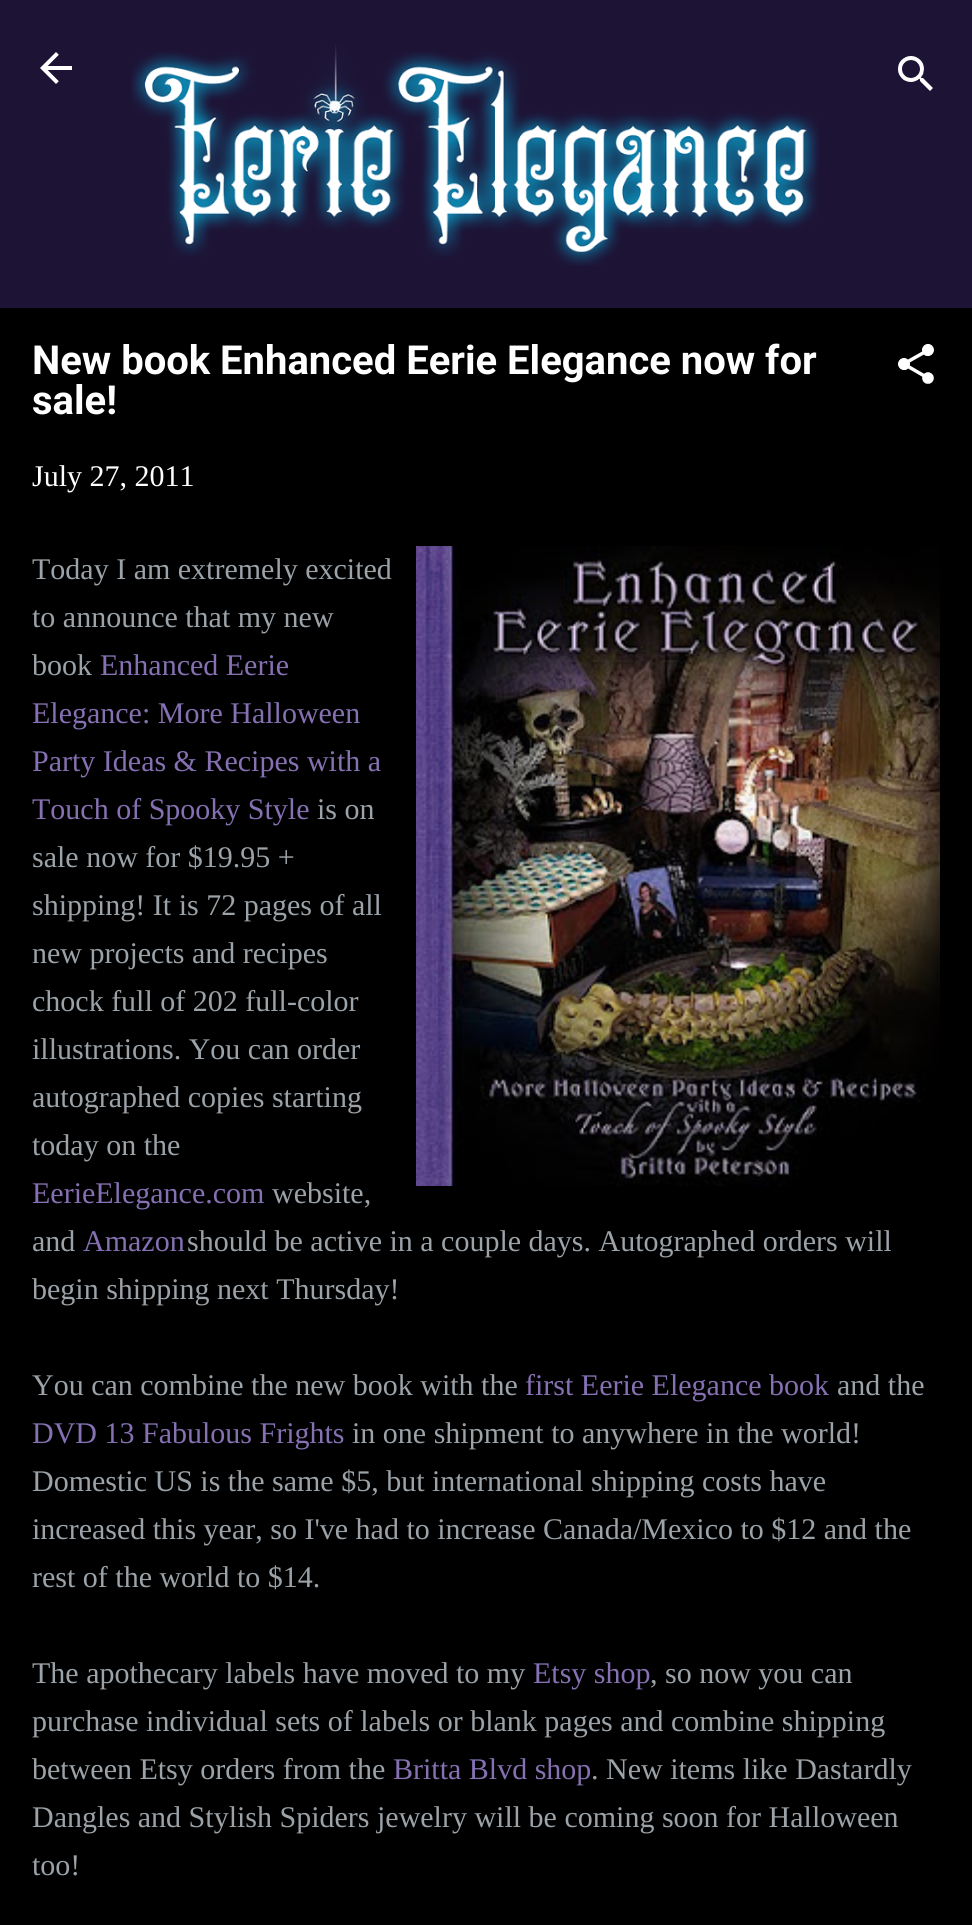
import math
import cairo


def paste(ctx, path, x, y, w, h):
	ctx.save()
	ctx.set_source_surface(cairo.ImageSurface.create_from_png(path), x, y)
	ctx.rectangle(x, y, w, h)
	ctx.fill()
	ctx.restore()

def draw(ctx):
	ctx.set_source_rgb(0.114, 0.075, 0.208)
	ctx.paint()
	paste(ctx, 'media/1.png', 40, 52, 32, 32)
	paste(ctx, 'media/2.png', 131, 44, 688, 222)
	paste(ctx, 'media/3.png', 898, 56, 35, 35)
	ctx.set_source_rgb(0, 0, 0)
	ctx.rectangle(0, 308, 972, 1617)
	ctx.fill()
	ctx.select_font_face('Roboto', cairo.FONT_SLANT_NORMAL, cairo.FONT_WEIGHT_BOLD)
	ctx.set_font_size(40)
	ctx.set_source_rgb(1, 1, 1)
	ctx.move_to(32, 374)
	ctx.show_text('New book Enhanced Eerie Elegance now for')
	ctx.move_to(32, 414)
	ctx.show_text('sale!')
	paste(ctx, 'media/4.png', 898, 344, 36, 40)
	ctx.select_font_face('Liberation Serif')
	ctx.set_font_size(30)
	ctx.move_to(32, 486)
	ctx.show_text('July 27, 2011')
	ctx.set_source_rgb(0.608, 0.635, 0.659)
	ctx.move_to(32, 579)
	ctx.show_text('Today I am extremely excited')
	paste(ctx, 'media/5.png', 416, 546, 524, 640)
	ctx.move_to(32, 627)
	ctx.show_text('to announce that my new')
	ctx.move_to(32, 675)
	ctx.show_text('book')
	ctx.set_source_rgb(0.522, 0.439, 0.698)
	for x, y, s in [
		(100, 675, 'Enhanced Eerie'),
		(32, 723, 'Elegance: More Halloween'),
		(32, 771, 'Party Ideas & Recipes with a'),
		(32, 819, 'Touch of Spooky Style'),
	]:
		ctx.move_to(x, y)
		ctx.show_text(s)
	ctx.set_source_rgb(0.608, 0.635, 0.659)
	for x, y, s in [
		(317, 819, 'is on'),
		(32, 867, 'sale now for $19.95 +'),
		(32, 915, 'shipping! It is 72 pages of all'),
		(32, 963, 'new projects and recipes'),
		(32, 1011, 'chock full of 202 full-color'),
		(32, 1059, 'illustrations. You can order'),
		(32, 1107, 'autographed copies starting'),
		(32, 1155, 'today on the'),
	]:
		ctx.move_to(x, y)
		ctx.show_text(s)
	ctx.set_source_rgb(0.522, 0.439, 0.698)
	ctx.move_to(32, 1203)
	ctx.show_text('EerieElegance.com')
	ctx.set_source_rgb(0.608, 0.635, 0.659)
	ctx.move_to(272, 1203)
	ctx.show_text('website,')
	ctx.move_to(32, 1251)
	ctx.show_text('and')
	ctx.set_source_rgb(0.522, 0.439, 0.698)
	ctx.move_to(83, 1251)
	ctx.show_text('Amazon')
	ctx.set_source_rgb(0.608, 0.635, 0.659)
	for x, y, s in [
		(187, 1251, 'should be active in a couple days. Autographed orders will'),
		(32, 1299, 'begin shipping next Thursday!'),
		(32, 1395, 'You can combine the new book with the'),
	]:
		ctx.move_to(x, y)
		ctx.show_text(s)
	ctx.set_source_rgb(0.522, 0.439, 0.698)
	ctx.move_to(525, 1395)
	ctx.show_text('first Eerie Elegance book')
	ctx.set_source_rgb(0.608, 0.635, 0.659)
	ctx.move_to(837, 1395)
	ctx.show_text('and the')
	ctx.set_source_rgb(0.522, 0.439, 0.698)
	ctx.move_to(32, 1443)
	ctx.show_text('DVD 13 Fabulous Frights')
	ctx.set_source_rgb(0.608, 0.635, 0.659)
	for x, y, s in [
		(352, 1443, 'in one shipment to anywhere in the world!'),
		(32, 1491, 'Domestic US is the same $5, but international shipping costs have'),
		(32, 1539, 'increased this year, so I\'ve had to increase Canada/Mexico to $12 and the'),
		(32, 1587, 'rest of the world to $14.'),
		(32, 1683, 'The apothecary labels have moved to my'),
	]:
		ctx.move_to(x, y)
		ctx.show_text(s)
	ctx.set_source_rgb(0.522, 0.439, 0.698)
	ctx.move_to(533, 1683)
	ctx.show_text('Etsy shop')
	ctx.set_source_rgb(0.608, 0.635, 0.659)
	for x, y, s in [
		(650, 1683, ', so now you can'),
		(32, 1731, 'purchase individual sets of labels or blank pages and combine shipping'),
		(32, 1779, 'between Etsy orders from the'),
	]:
		ctx.move_to(x, y)
		ctx.show_text(s)
	ctx.set_source_rgb(0.522, 0.439, 0.698)
	ctx.move_to(393, 1779)
	ctx.show_text('Britta Blvd shop')
	ctx.set_source_rgb(0.608, 0.635, 0.659)
	for x, y, s in [
		(591, 1779, '. New items like Dastardly'),
		(32, 1827, 'Dangles and Stylish Spiders jewelry will be coming soon for Halloween'),
		(32, 1875, 'too!'),
	]:
		ctx.move_to(x, y)
		ctx.show_text(s)


surface = cairo.ImageSurface(cairo.FORMAT_RGB24, 972, 1925)
ctx = cairo.Context(surface)
options = cairo.FontOptions()
options.set_hint_metrics(cairo.HINT_METRICS_OFF)
options.set_hint_style(cairo.HINT_STYLE_NONE)
ctx.set_font_options(options)
ctx.set_miter_limit(4)
draw(ctx)
surface.write_to_png('image.png')
